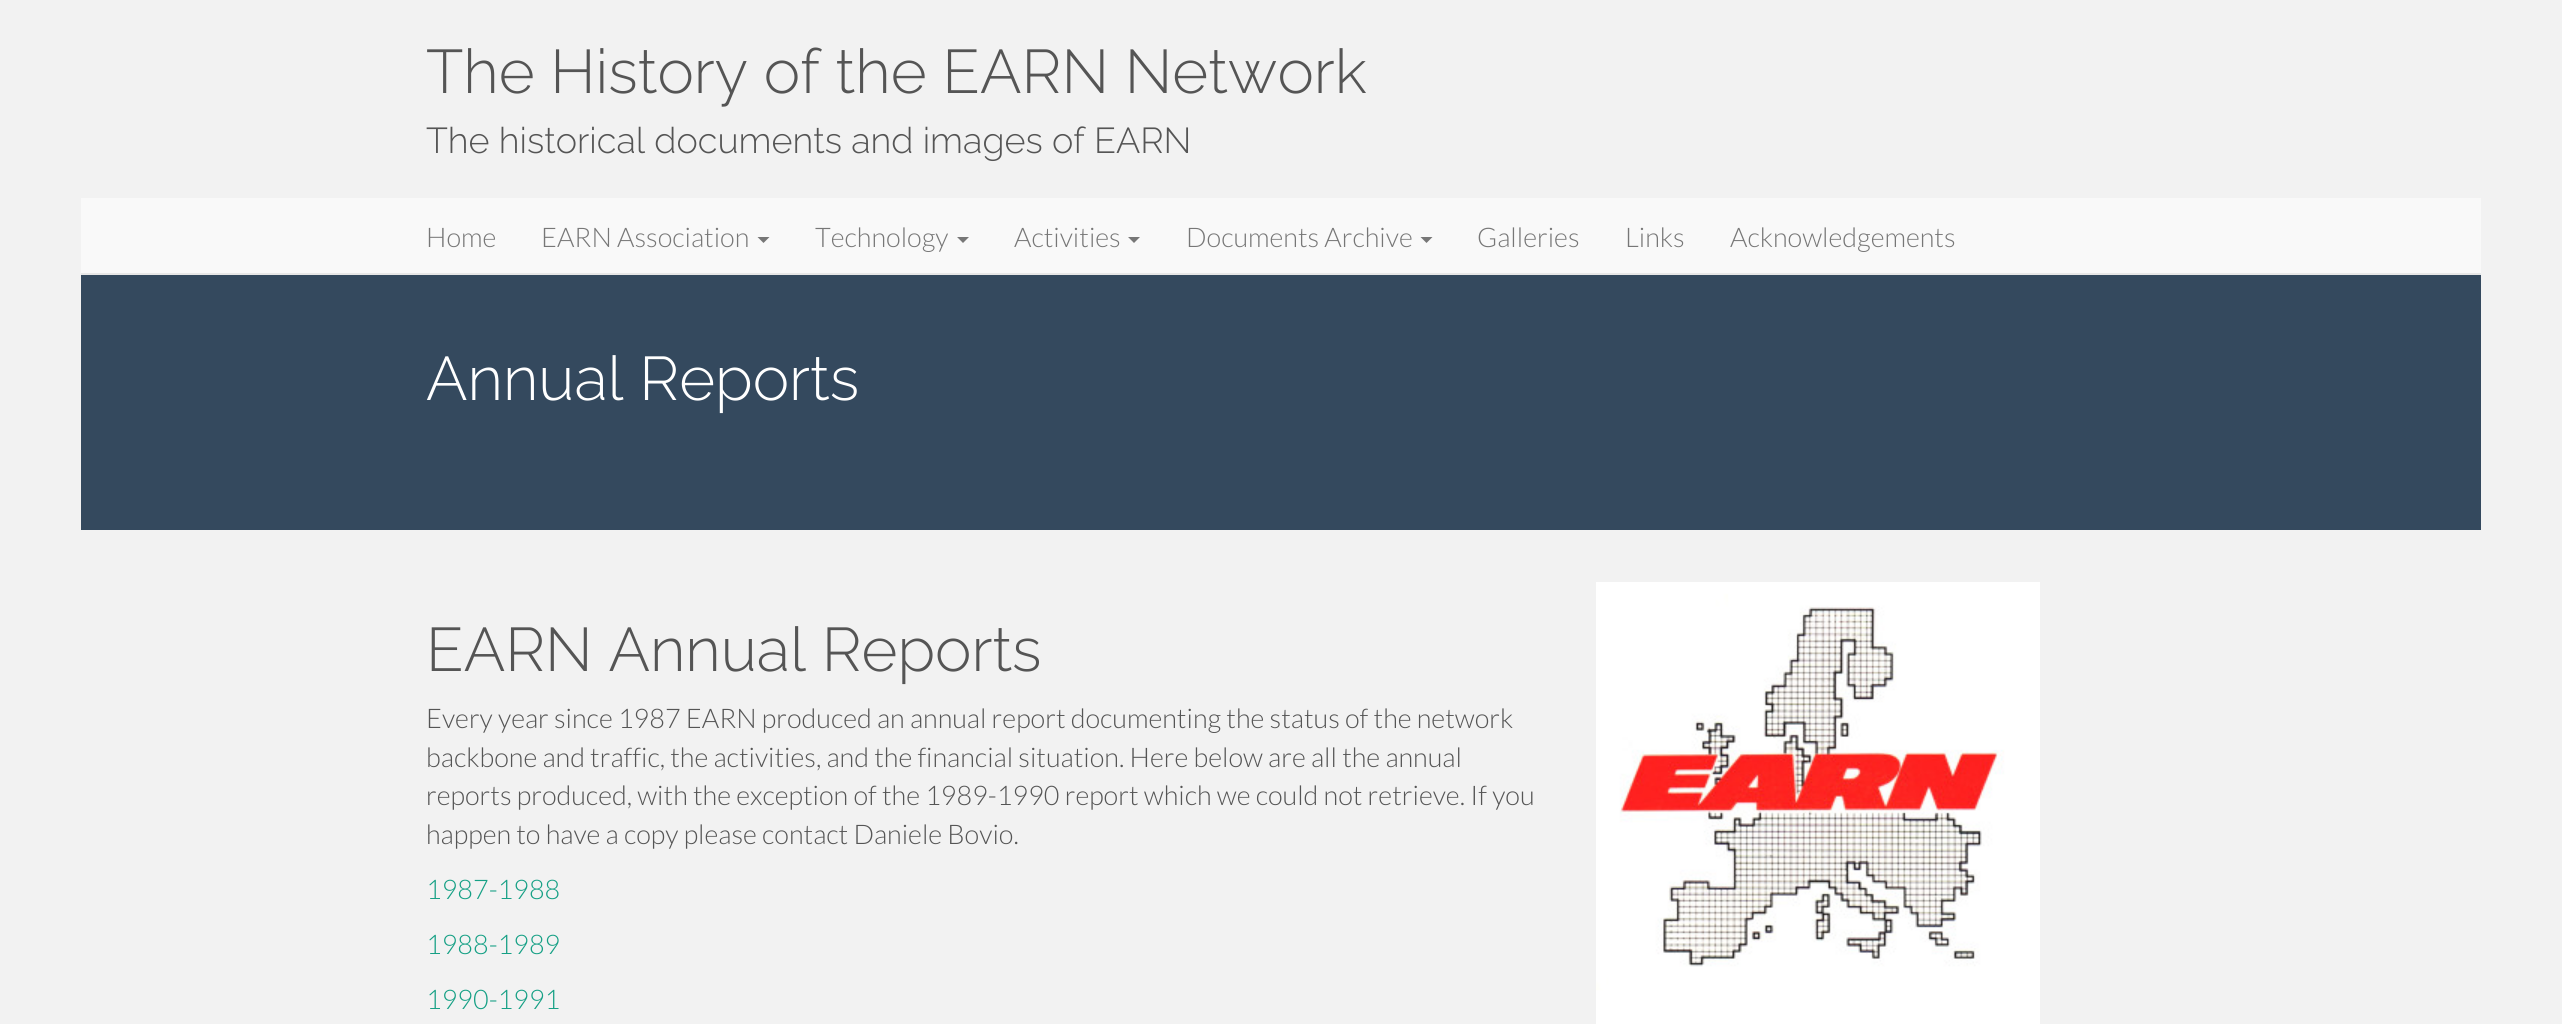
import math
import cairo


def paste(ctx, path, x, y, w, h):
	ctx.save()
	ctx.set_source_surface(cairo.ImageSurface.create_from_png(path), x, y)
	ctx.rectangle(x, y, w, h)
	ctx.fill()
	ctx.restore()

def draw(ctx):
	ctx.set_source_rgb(0.949, 0.949, 0.949)
	ctx.paint()
	ctx.select_font_face('Raleway Light')
	ctx.set_font_size(61.5)
	ctx.set_source_rgb(0.333, 0.333, 0.333)
	ctx.move_to(426, 93)
	ctx.show_text('The History of the EARN Network')
	ctx.set_font_size(36)
	ctx.move_to(426, 153)
	ctx.show_text('The historical documents and images of EARN')
	ctx.set_source_rgb(0.973, 0.973, 0.973)
	ctx.rectangle(81, 198, 2400, 75)
	ctx.fill()
	ctx.set_source_rgb(0.906, 0.906, 0.906)
	ctx.rectangle(81, 273, 2400, 2)
	ctx.fill()
	ctx.select_font_face('Lato Light')
	ctx.set_font_size(27)
	ctx.set_source_rgb(0.467, 0.467, 0.467)
	ctx.move_to(426, 247)
	ctx.show_text('Home')
	ctx.move_to(541, 247)
	ctx.show_text('EARN Association')
	ctx.new_path()
	ctx.move_to(757.5, 237)
	ctx.line_to(769.5, 237)
	ctx.line_to(763.5, 243)
	ctx.close_path()
	ctx.fill()
	ctx.move_to(815, 247)
	ctx.show_text('Technology')
	ctx.new_path()
	ctx.move_to(957, 237)
	ctx.line_to(969, 237)
	ctx.line_to(963, 243)
	ctx.close_path()
	ctx.fill()
	ctx.move_to(1014, 247)
	ctx.show_text('Activities')
	ctx.new_path()
	ctx.move_to(1128, 237)
	ctx.line_to(1140, 237)
	ctx.line_to(1134, 243)
	ctx.close_path()
	ctx.fill()
	ctx.move_to(1186, 247)
	ctx.show_text('Documents Archive')
	ctx.new_path()
	ctx.move_to(1420.5, 237)
	ctx.line_to(1432.5, 237)
	ctx.line_to(1426.5, 243)
	ctx.close_path()
	ctx.fill()
	for x, y, s in [
		(1477, 247, 'Galleries'),
		(1625, 247, 'Links'),
		(1730, 247, 'Acknowledgements'),
	]:
		ctx.move_to(x, y)
		ctx.show_text(s)
	ctx.set_source_rgb(0.204, 0.286, 0.369)
	ctx.rectangle(81, 275, 2400, 255)
	ctx.fill()
	ctx.select_font_face('Raleway Light')
	ctx.set_font_size(61.5)
	ctx.set_source_rgb(1, 1, 1)
	ctx.move_to(426, 400)
	ctx.show_text('Annual Reports')
	ctx.set_source_rgb(0.333, 0.333, 0.333)
	ctx.move_to(426, 671)
	ctx.show_text('EARN Annual Reports')
	ctx.select_font_face('Lato Light')
	ctx.set_font_size(27)
	for x, y, s in [
		(426, 728, 'Every year since 1987 EARN produced an annual report documenting the status of the network'),
		(426, 767, 'backbone and traffic, the activities, and the financial situation. Here below are all the annual'),
		(426, 805, 'reports produced, with the exception of the 1989-1990 report which we could not retrieve. If you'),
		(426, 844, 'happen to have a copy please contact Daniele Bovio.'),
	]:
		ctx.move_to(x, y)
		ctx.show_text(s)
	ctx.set_source_rgb(0.086, 0.627, 0.522)
	for x, y, s in [
		(426, 899, '1987-1988'),
		(426, 954, '1988-1989'),
		(426, 1009, '1990-1991'),
	]:
		ctx.move_to(x, y)
		ctx.show_text(s)
	paste(ctx, 'media/1.png', 1596, 582, 444, 442)


surface = cairo.ImageSurface(cairo.FORMAT_RGB24, 2562, 1024)
ctx = cairo.Context(surface)
options = cairo.FontOptions()
options.set_hint_metrics(cairo.HINT_METRICS_OFF)
options.set_hint_style(cairo.HINT_STYLE_NONE)
ctx.set_font_options(options)
ctx.set_miter_limit(4)
draw(ctx)
surface.write_to_png('image.png')
